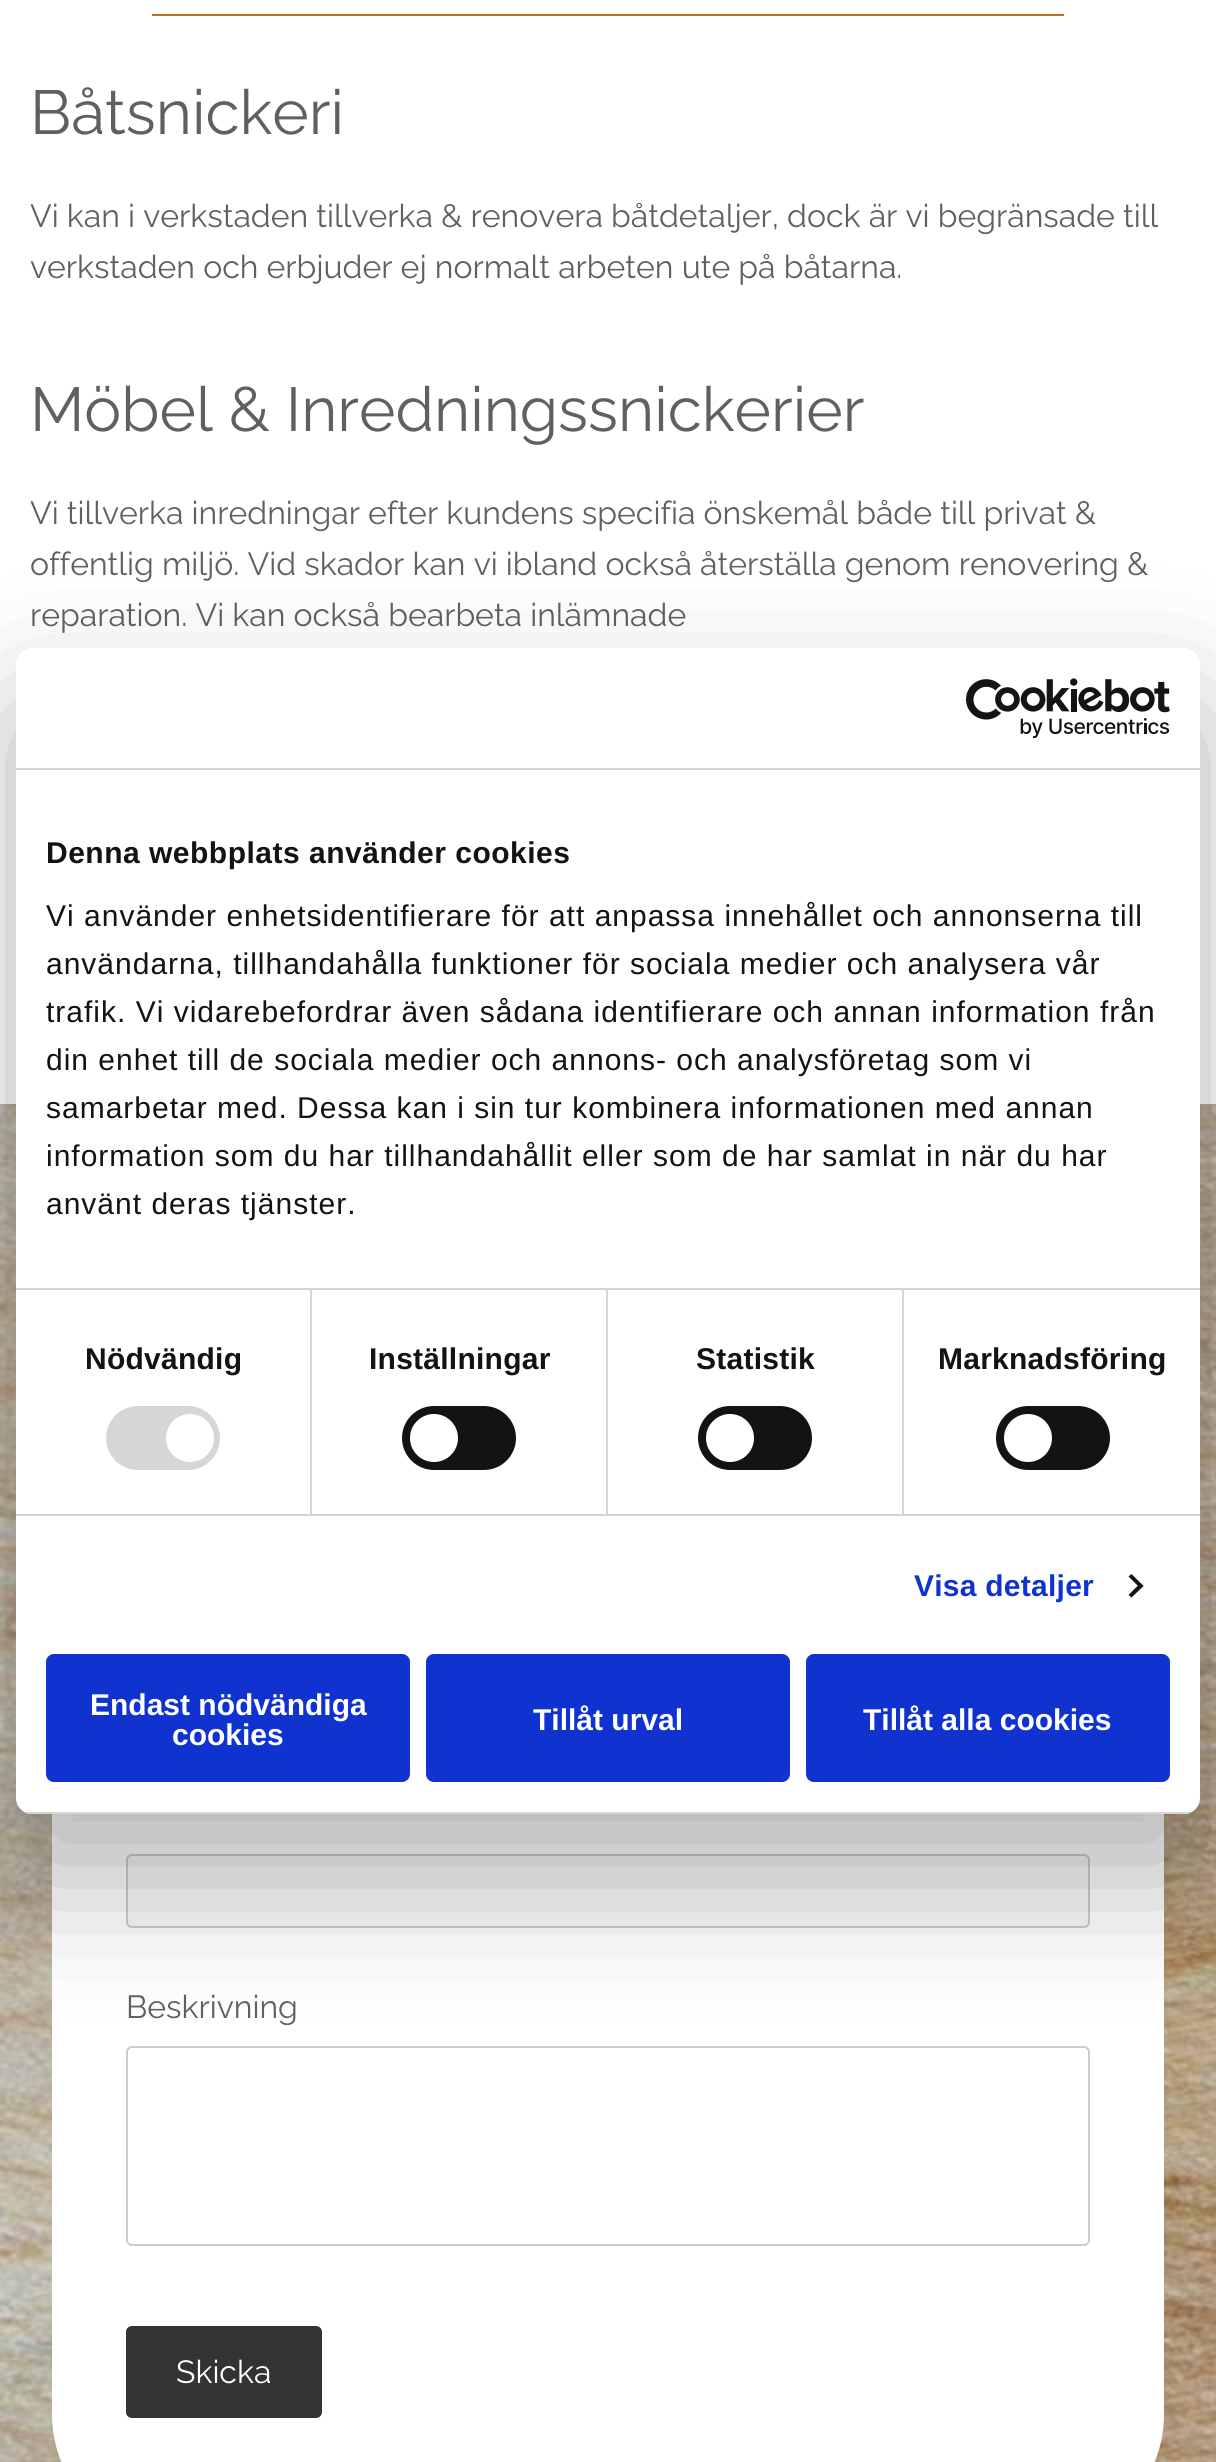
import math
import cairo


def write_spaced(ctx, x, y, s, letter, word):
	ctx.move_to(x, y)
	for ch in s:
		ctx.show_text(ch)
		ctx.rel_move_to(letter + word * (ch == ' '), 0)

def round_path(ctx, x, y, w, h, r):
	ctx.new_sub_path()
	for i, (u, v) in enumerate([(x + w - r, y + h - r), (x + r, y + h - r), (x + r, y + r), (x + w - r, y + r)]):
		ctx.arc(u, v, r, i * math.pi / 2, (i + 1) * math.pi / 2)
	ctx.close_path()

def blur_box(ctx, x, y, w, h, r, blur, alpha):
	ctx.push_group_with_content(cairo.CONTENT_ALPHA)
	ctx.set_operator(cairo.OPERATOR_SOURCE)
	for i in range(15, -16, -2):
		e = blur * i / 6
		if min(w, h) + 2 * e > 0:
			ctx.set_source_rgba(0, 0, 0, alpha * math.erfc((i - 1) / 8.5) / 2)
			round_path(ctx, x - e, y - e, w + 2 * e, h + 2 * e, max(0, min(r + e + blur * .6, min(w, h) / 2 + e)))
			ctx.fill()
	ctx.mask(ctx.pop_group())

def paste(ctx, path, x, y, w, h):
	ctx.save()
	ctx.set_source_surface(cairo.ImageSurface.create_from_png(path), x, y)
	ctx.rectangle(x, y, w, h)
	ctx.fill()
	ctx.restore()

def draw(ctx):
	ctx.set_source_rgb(1, 1, 1)
	ctx.paint()
	ctx.set_source_rgb(0.749, 0.435, 0.122)
	ctx.rectangle(152, 14, 912, 2)
	ctx.fill()
	ctx.select_font_face('Raleway')
	ctx.set_font_size(62)
	ctx.set_source_rgb(0.376, 0.376, 0.376)
	ctx.move_to(30, 134)
	ctx.show_text('Båtsnickeri')
	ctx.set_font_size(32)
	ctx.move_to(30, 227)
	ctx.show_text('Vi kan i verkstaden tillverka & renovera båtdetaljer, dock är vi begränsade till')
	ctx.move_to(30, 278)
	ctx.show_text('verkstaden och erbjuder ej normalt arbeten ute på båtarna.')
	ctx.set_font_size(62)
	ctx.move_to(30, 431)
	ctx.show_text('Möbel & Inredningssnickerier')
	ctx.set_font_size(32)
	for x, y, s in [
		(30, 524, 'Vi tillverka inredningar efter kundens specifia önskemål både till privat &'),
		(30, 575, 'offentlig miljö. Vid skador kan vi ibland också återställa genom renovering &'),
		(30, 626, 'reparation. Vi kan också bearbeta inlämnade'),
	]:
		ctx.move_to(x, y)
		ctx.show_text(s)
	paste(ctx, 'media/1.png', 0, 1104, 1216, 1358)
	ctx.set_source_rgb(1, 1, 1)
	round_path(ctx, 52, 1156, 1112, 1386, 128)
	ctx.fill()
	ctx.set_source_rgb(0.973, 0.973, 0.973)
	round_path(ctx, 127, 1855, 962, 72, 5)
	ctx.fill_preserve()
	ctx.set_source_rgb(0.8, 0.8, 0.8)
	ctx.stroke()
	ctx.set_source_rgb(0.376, 0.376, 0.376)
	ctx.move_to(126, 2018)
	ctx.show_text('Beskrivning')
	round_path(ctx, 127, 2047, 962, 198, 5)
	ctx.set_source_rgb(0.8, 0.8, 0.8)
	ctx.stroke()
	ctx.set_source_rgb(0.2, 0.2, 0.2)
	round_path(ctx, 126, 2326, 196, 92, 6)
	ctx.fill()
	ctx.set_source_rgb(1, 1, 1)
	ctx.move_to(176, 2383)
	ctx.show_text('Skicka')
	ctx.set_source_rgb(0, 0, 0)
	blur_box(ctx, 16, 712, 1184, 1166, 16, 68, 0.3)
	ctx.set_source_rgb(1, 1, 1)
	round_path(ctx, 16, 648, 1184, 1166, 16)
	ctx.fill()
	ctx.set_source_rgb(0.839, 0.839, 0.839)
	ctx.rectangle(16, 768, 1184, 2)
	ctx.fill()
	paste(ctx, 'media/2.png', 966, 678, 204, 60)
	ctx.rectangle(16, 1288, 1184, 2)
	ctx.fill()
	ctx.select_font_face('Liberation Sans', cairo.FONT_SLANT_NORMAL, cairo.FONT_WEIGHT_BOLD)
	ctx.set_font_size(30)
	ctx.set_source_rgb(0.078, 0.078, 0.078)
	write_spaced(ctx, 46, 863, 'Denna webbplats använder cookies', 0.5, 0)
	ctx.select_font_face('Liberation Sans')
	for x, y, s in [
		(46, 926, 'Vi använder enhetsidentifierare för att anpassa innehållet och annonserna till'),
		(46, 974, 'användarna, tillhandahålla funktioner för sociala medier och analysera vår'),
		(46, 1022, 'trafik. Vi vidarebefordrar även sådana identifierare och annan information från'),
		(46, 1070, 'din enhet till de sociala medier och annons- och analysföretag som vi'),
		(46, 1118, 'samarbetar med. Dessa kan i sin tur kombinera informationen med annan'),
		(46, 1166, 'information som du har tillhandahållit eller som de har samlat in när du har'),
		(46, 1214, 'använt deras tjänster.'),
	]:
		write_spaced(ctx, x, y, s, 1, 0)
	ctx.set_source_rgb(0.839, 0.839, 0.839)
	ctx.rectangle(16, 1514, 1184, 2)
	ctx.fill()
	ctx.rectangle(310, 1290, 2, 224)
	ctx.fill()
	ctx.select_font_face('Liberation Sans', cairo.FONT_SLANT_NORMAL, cairo.FONT_WEIGHT_BOLD)
	ctx.set_source_rgb(0.078, 0.078, 0.078)
	write_spaced(ctx, 85, 1369, 'Nödvändig', 0.25, 0)
	ctx.set_source_rgb(0.839, 0.839, 0.839)
	round_path(ctx, 106, 1406, 114, 64, 32)
	ctx.fill()
	ctx.set_source_rgb(1, 1, 1)
	ctx.arc(190, 1438, 24, 0, 2 * math.pi)
	ctx.fill()
	ctx.set_source_rgb(0.839, 0.839, 0.839)
	ctx.rectangle(606, 1290, 2, 224)
	ctx.fill()
	ctx.set_source_rgb(0.078, 0.078, 0.078)
	write_spaced(ctx, 369, 1369, 'Inställningar', 0.25, 0)
	round_path(ctx, 402, 1406, 114, 64, 32)
	ctx.fill()
	ctx.set_source_rgb(1, 1, 1)
	ctx.arc(434, 1438, 24, 0, 2 * math.pi)
	ctx.fill()
	ctx.set_source_rgb(0.839, 0.839, 0.839)
	ctx.rectangle(902, 1290, 2, 224)
	ctx.fill()
	ctx.set_source_rgb(0.078, 0.078, 0.078)
	write_spaced(ctx, 696, 1369, 'Statistik', 0.25, 0)
	round_path(ctx, 698, 1406, 114, 64, 32)
	ctx.fill()
	ctx.set_source_rgb(1, 1, 1)
	ctx.arc(730, 1438, 24, 0, 2 * math.pi)
	ctx.fill()
	ctx.set_source_rgb(0.078, 0.078, 0.078)
	write_spaced(ctx, 938, 1369, 'Marknadsföring', 0.25, 0)
	round_path(ctx, 996, 1406, 114, 64, 32)
	ctx.fill()
	ctx.set_source_rgb(1, 1, 1)
	ctx.arc(1028, 1438, 24, 0, 2 * math.pi)
	ctx.fill()
	ctx.set_source_rgb(0.063, 0.196, 0.812)
	write_spaced(ctx, 914, 1596, 'Visa detaljer', 0.25, 0)
	ctx.set_source_rgb(0.078, 0.078, 0.078)
	ctx.new_path()
	ctx.move_to(1131.5, 1574)
	ctx.line_to(1143.5, 1586)
	ctx.line_to(1140.5, 1588.5)
	ctx.line_to(1128.5, 1576.5)
	ctx.close_path()
	ctx.fill()
	ctx.new_path()
	ctx.move_to(1140.5, 1583)
	ctx.line_to(1143.5, 1586)
	ctx.line_to(1131.5, 1597.5)
	ctx.line_to(1128.5, 1595)
	ctx.close_path()
	ctx.fill()
	ctx.save()
	round_path(ctx, 16, 648, 1184, 1166, 16)
	ctx.clip()
	ctx.set_source_rgb(0.839, 0.839, 0.839)
	ctx.rectangle(16, 1812, 1184, 2)
	ctx.fill()
	ctx.restore()
	ctx.set_source_rgb(0.063, 0.196, 0.812)
	round_path(ctx, 48, 1656, 360, 124, 6)
	ctx.fill_preserve()
	ctx.set_line_width(4)
	ctx.stroke()
	ctx.set_source_rgb(1, 1, 1)
	ctx.move_to(90, 1715)
	ctx.show_text('Endast nödvändiga')
	ctx.move_to(172, 1745)
	ctx.show_text('cookies')
	ctx.set_source_rgb(0.063, 0.196, 0.812)
	round_path(ctx, 428, 1656, 360, 124, 6)
	ctx.fill_preserve()
	ctx.stroke()
	ctx.set_source_rgb(1, 1, 1)
	ctx.move_to(533, 1730)
	ctx.show_text('Tillåt urval')
	ctx.set_source_rgb(0.063, 0.196, 0.812)
	round_path(ctx, 808, 1656, 360, 124, 6)
	ctx.fill_preserve()
	ctx.stroke()
	ctx.set_source_rgb(1, 1, 1)
	ctx.move_to(863, 1730)
	ctx.show_text('Tillåt alla cookies')


surface = cairo.ImageSurface(cairo.FORMAT_RGB24, 1216, 2462)
ctx = cairo.Context(surface)
options = cairo.FontOptions()
options.set_hint_metrics(cairo.HINT_METRICS_OFF)
options.set_hint_style(cairo.HINT_STYLE_NONE)
ctx.set_font_options(options)
ctx.set_miter_limit(4)
draw(ctx)
surface.write_to_png('image.png')
